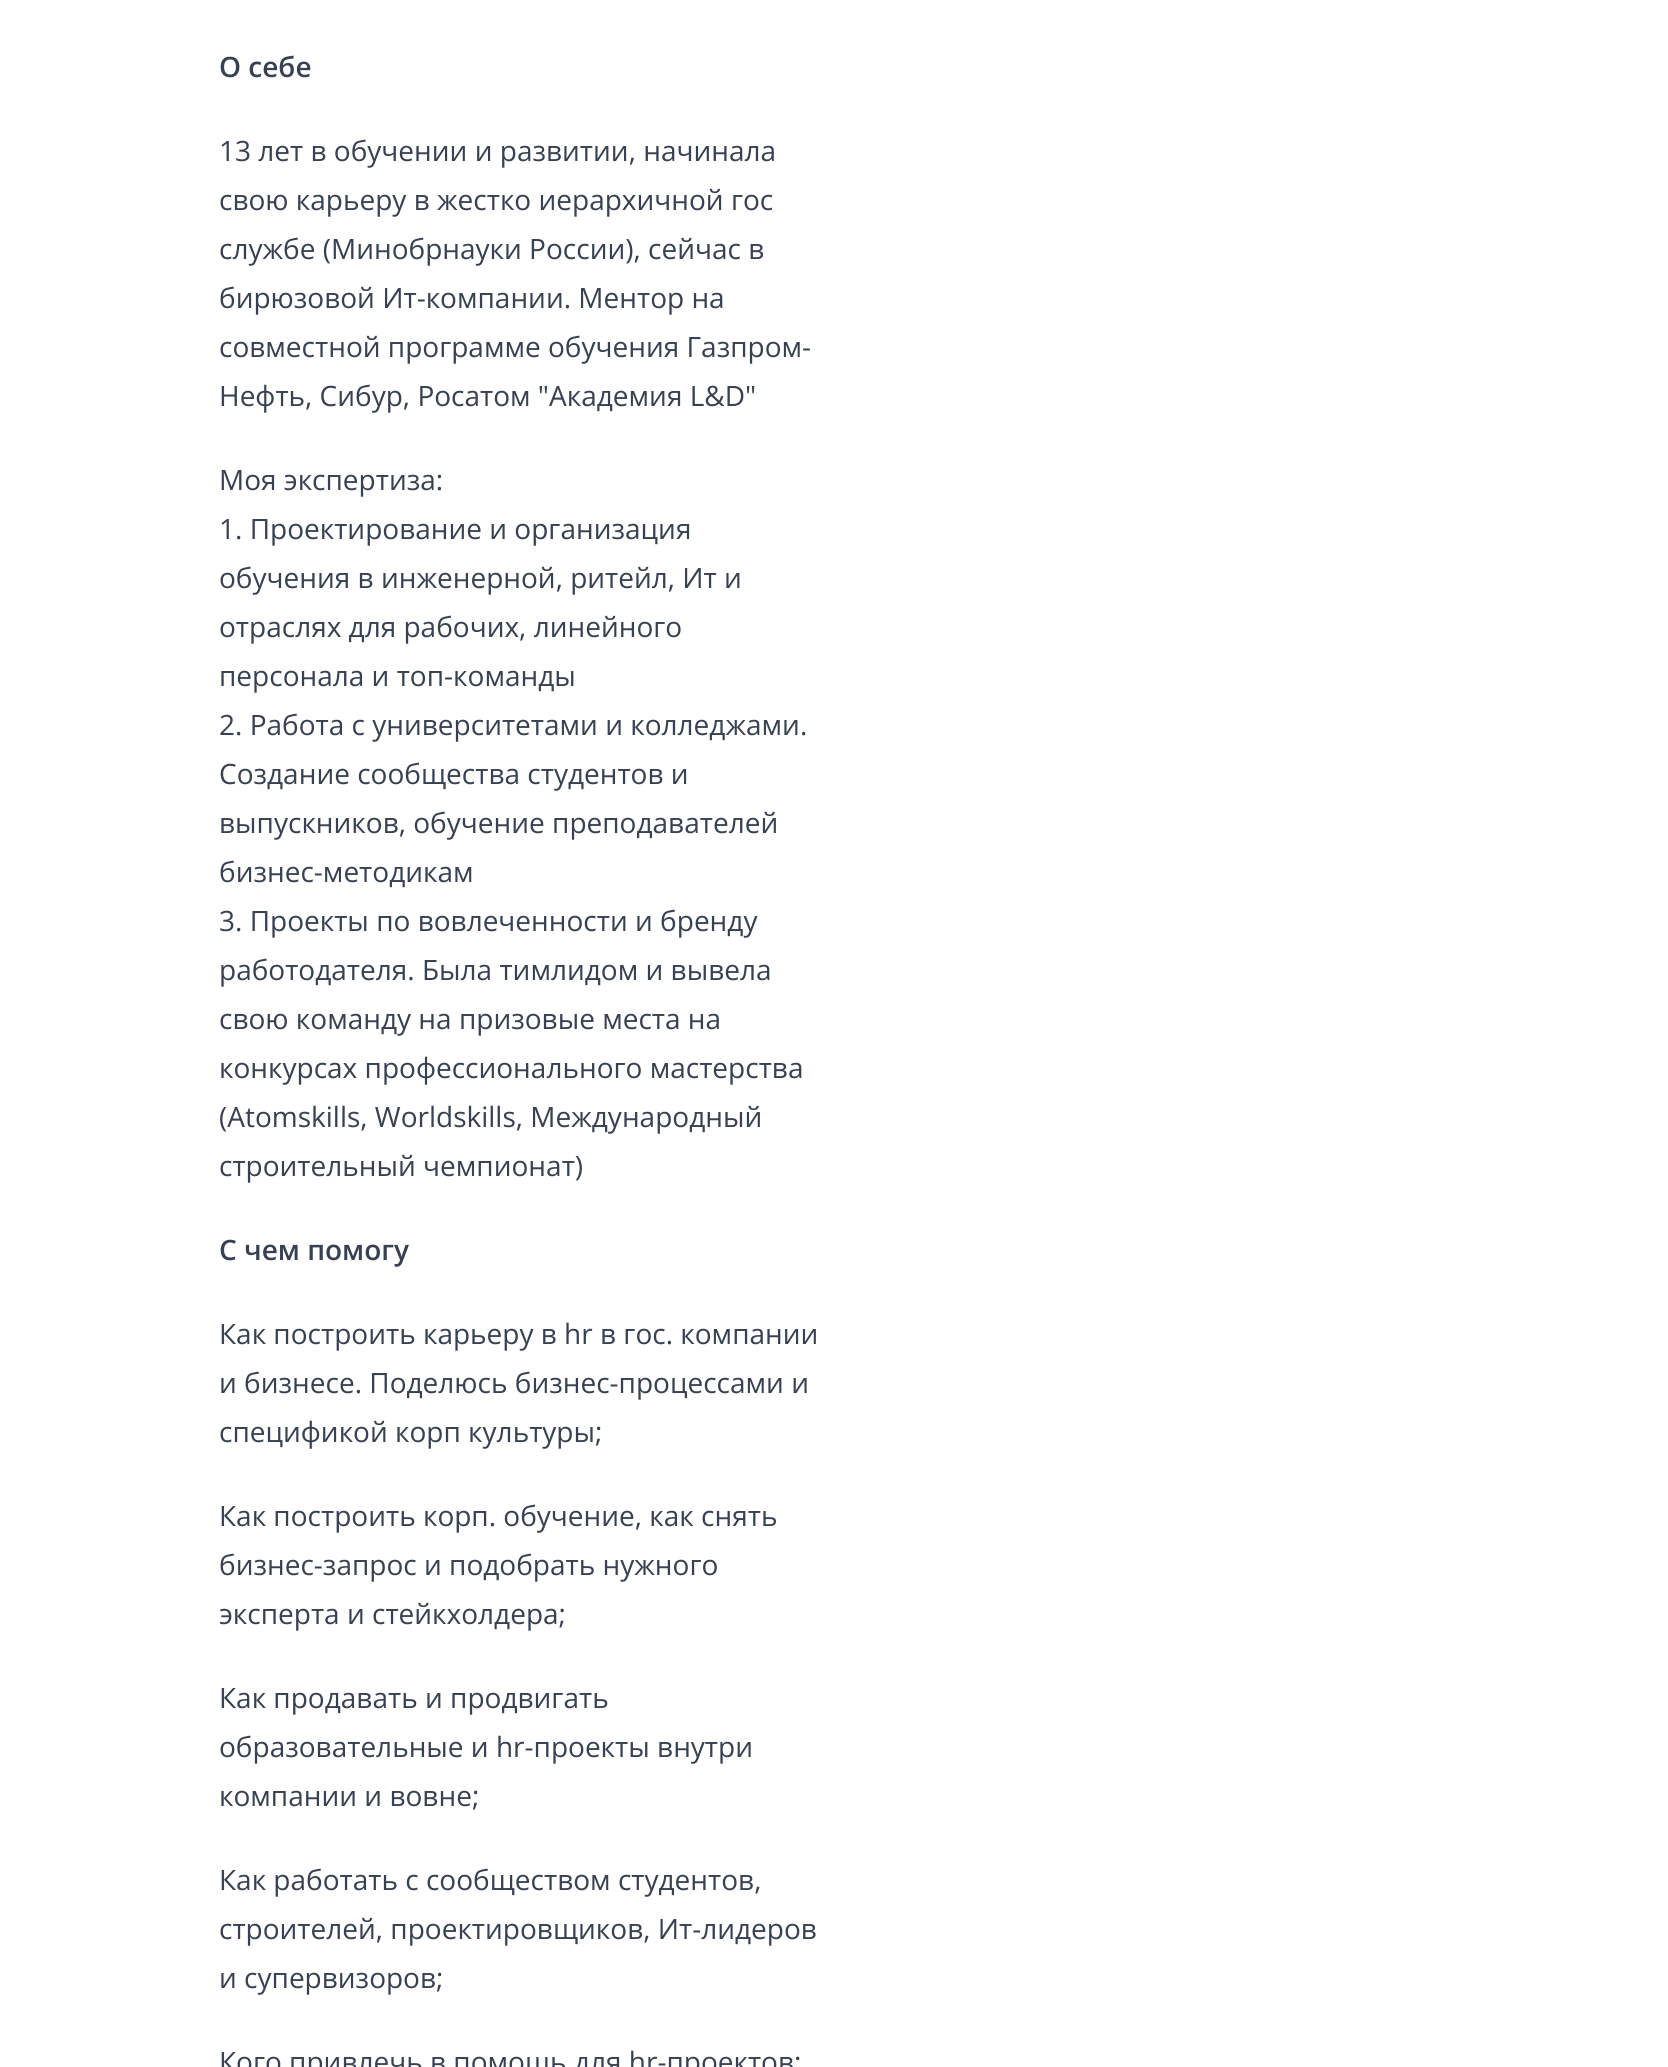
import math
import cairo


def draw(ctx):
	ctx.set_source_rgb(1, 1, 1)
	ctx.paint()
	ctx.select_font_face('Open Sans SemiBold')
	ctx.set_font_size(28)
	ctx.set_source_rgb(0.216, 0.255, 0.318)
	ctx.move_to(219, 77)
	ctx.show_text('О себе')
	ctx.select_font_face('Open Sans')
	for x, y, s in [
		(219, 161, '13 лет в обучении и развитии, начинала'),
		(219, 210, 'свою карьеру в жестко иерархичной гос'),
		(219, 259, 'службе (Минобрнауки России), сейчас в'),
		(219, 308, 'бирюзовой Ит-компании. Ментор на'),
		(219, 357, 'совместной программе обучения Газпром-'),
		(219, 406, 'Нефть, Сибур, Росатом "Академия L&D"'),
		(219, 490, 'Моя экспертиза:'),
		(219, 539, '1. Проектирование и организация'),
		(219, 588, 'обучения в инженерной, ритейл, Ит и'),
		(219, 637, 'отраслях для рабочих, линейного'),
		(219, 686, 'персонала и топ-команды'),
		(219, 735, '2. Работа с университетами и колледжами.'),
		(219, 784, 'Создание сообщества студентов и'),
		(219, 833, 'выпускников, обучение преподавателей'),
		(219, 882, 'бизнес-методикам'),
		(219, 931, '3. Проекты по вовлеченности и бренду'),
		(219, 980, 'работодателя. Была тимлидом и вывела'),
		(219, 1029, 'свою команду на призовые места на'),
		(219, 1078, 'конкурсах профессионального мастерства'),
		(219, 1127, '(Atomskills, Worldskills, Международный'),
		(219, 1176, 'строительный чемпионат)'),
	]:
		ctx.move_to(x, y)
		ctx.show_text(s)
	ctx.select_font_face('Open Sans SemiBold')
	ctx.move_to(219, 1260)
	ctx.show_text('С чем помогу')
	ctx.select_font_face('Open Sans')
	for x, y, s in [
		(219, 1344, 'Как построить карьеру в hr в гос. компании'),
		(219, 1393, 'и бизнесе. Поделюсь бизнес-процессами и'),
		(219, 1442, 'спецификой корп культуры;'),
		(219, 1526, 'Как построить корп. обучение, как снять'),
		(219, 1575, 'бизнес-запрос и подобрать нужного'),
		(219, 1624, 'эксперта и стейкхолдера;'),
		(219, 1708, 'Как продавать и продвигать'),
		(219, 1757, 'образовательные и hr-проекты внутри'),
		(219, 1806, 'компании и вовне;'),
		(219, 1890, 'Как работать с сообществом студентов,'),
		(219, 1939, 'строителей, проектировщиков, Ит-лидеров'),
		(219, 1988, 'и супервизоров;'),
		(219, 2072, 'Кого привлечь в помощь для hr-проектов:'),
	]:
		ctx.move_to(x, y)
		ctx.show_text(s)


surface = cairo.ImageSurface(cairo.FORMAT_RGB24, 1668, 2067)
ctx = cairo.Context(surface)
options = cairo.FontOptions()
options.set_hint_metrics(cairo.HINT_METRICS_OFF)
options.set_hint_style(cairo.HINT_STYLE_NONE)
ctx.set_font_options(options)
ctx.set_miter_limit(4)
draw(ctx)
surface.write_to_png('image.png')
